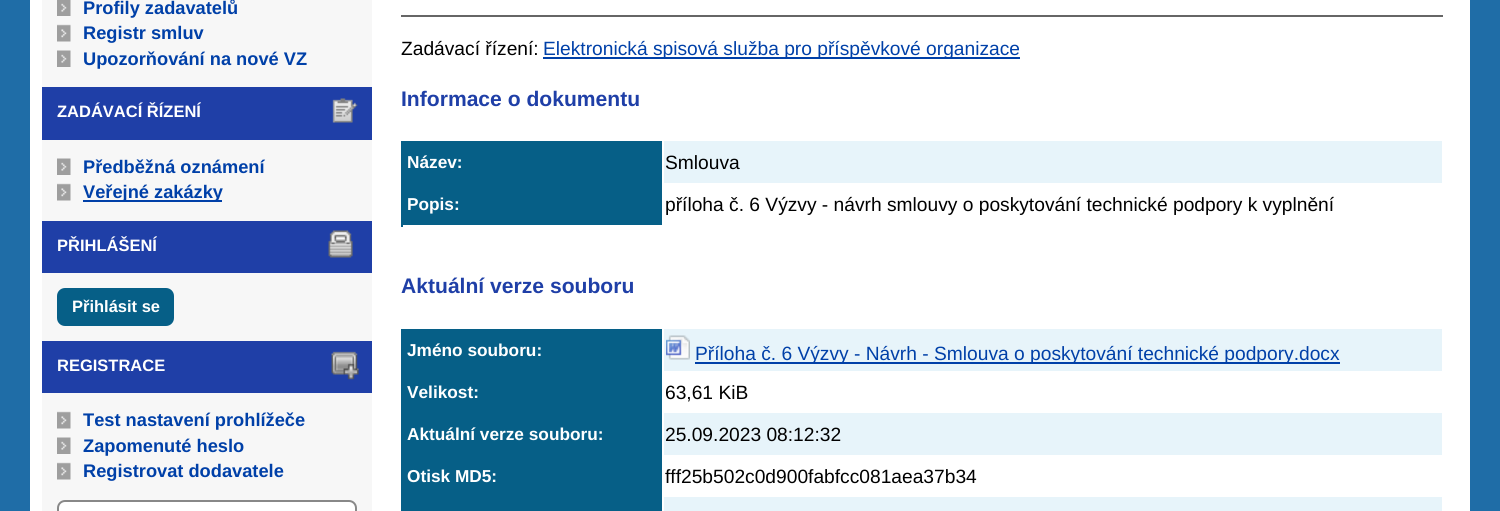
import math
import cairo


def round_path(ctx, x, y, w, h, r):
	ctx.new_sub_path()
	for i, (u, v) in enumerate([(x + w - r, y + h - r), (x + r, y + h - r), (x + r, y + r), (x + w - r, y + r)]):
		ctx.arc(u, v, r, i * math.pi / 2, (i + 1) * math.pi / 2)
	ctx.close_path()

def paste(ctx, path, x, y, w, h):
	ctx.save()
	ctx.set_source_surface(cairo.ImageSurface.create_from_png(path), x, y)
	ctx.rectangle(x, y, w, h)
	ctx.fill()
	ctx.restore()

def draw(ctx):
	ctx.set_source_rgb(0.122, 0.427, 0.655)
	ctx.paint()
	ctx.set_source_rgb(1, 1, 1)
	ctx.rectangle(30, 0, 1440, 511)
	ctx.fill()
	ctx.set_source_rgb(0.965, 0.965, 0.965)
	ctx.rectangle(42, 0, 330, 511)
	ctx.fill()
	paste(ctx, 'media/1.png', 57, 0, 14, 16)
	ctx.select_font_face('Liberation Sans', cairo.FONT_SLANT_NORMAL, cairo.FONT_WEIGHT_BOLD)
	ctx.set_font_size(18.25)
	ctx.set_source_rgb(0, 0.251, 0.659)
	ctx.move_to(83, 14)
	ctx.show_text('Profily zadavatelů')
	paste(ctx, 'media/2.png', 57, 24, 14, 18)
	ctx.move_to(83, 39)
	ctx.show_text('Registr smluv')
	paste(ctx, 'media/3.png', 57, 50, 14, 17)
	ctx.move_to(83, 65)
	ctx.show_text('Upozorňování na nové VZ')
	ctx.set_source_rgb(0.122, 0.247, 0.655)
	ctx.rectangle(42, 87, 330, 53)
	ctx.fill()
	paste(ctx, 'media/4.png', 332, 98, 26, 25)
	ctx.set_font_size(16.5)
	ctx.set_source_rgb(1, 1, 1)
	ctx.move_to(57, 117)
	ctx.show_text('ZADÁVACÍ ŘÍZENÍ')
	paste(ctx, 'media/3.png', 57, 158, 14, 17)
	ctx.set_font_size(18.25)
	ctx.set_source_rgb(0, 0.251, 0.659)
	ctx.move_to(83, 173)
	ctx.show_text('Předběžná oznámení')
	paste(ctx, 'media/2.png', 57, 183, 14, 18)
	ctx.rectangle(83, 200, 139, 2)
	ctx.fill()
	ctx.move_to(83, 198)
	ctx.show_text('Veřejné zakázky')
	ctx.set_source_rgb(0.122, 0.247, 0.655)
	ctx.rectangle(42, 221, 330, 52)
	ctx.fill()
	paste(ctx, 'media/5.png', 328, 230, 25, 28)
	ctx.set_font_size(16.5)
	ctx.set_source_rgb(1, 1, 1)
	ctx.move_to(57, 251)
	ctx.show_text('PŘIHLÁŠENÍ')
	ctx.set_source_rgb(0.024, 0.373, 0.529)
	round_path(ctx, 57, 288, 117, 38, 8)
	ctx.fill()
	ctx.set_source_rgb(1, 1, 1)
	ctx.move_to(72, 312)
	ctx.show_text('Přihlásit se')
	ctx.set_source_rgb(0.122, 0.247, 0.655)
	ctx.rectangle(42, 341, 330, 52)
	ctx.fill()
	paste(ctx, 'media/6.png', 331, 351, 28, 29)
	ctx.set_source_rgb(1, 1, 1)
	ctx.move_to(57, 371)
	ctx.show_text('REGISTRACE')
	paste(ctx, 'media/2.png', 57, 411, 14, 18)
	ctx.set_font_size(18.25)
	ctx.set_source_rgb(0, 0.251, 0.659)
	ctx.move_to(83, 426)
	ctx.show_text('Test nastavení prohlížeče')
	paste(ctx, 'media/3.png', 57, 437, 14, 17)
	ctx.move_to(83, 452)
	ctx.show_text('Zapomenuté heslo')
	paste(ctx, 'media/2.png', 57, 462, 14, 18)
	ctx.move_to(83, 477)
	ctx.show_text('Registrovat dodavatele')
	ctx.set_source_rgb(1, 1, 1)
	round_path(ctx, 58, 501, 298, 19, 7)
	ctx.fill_preserve()
	ctx.set_source_rgb(0.533, 0.533, 0.533)
	ctx.stroke()
	ctx.set_source_rgb(0.4, 0.4, 0.4)
	ctx.rectangle(401, 15, 1042, 2)
	ctx.fill()
	ctx.select_font_face('Liberation Sans')
	ctx.set_font_size(19.2)
	ctx.set_source_rgb(0, 0, 0)
	ctx.move_to(401, 55)
	ctx.show_text('Zadávací řízení:')
	ctx.set_source_rgb(0, 0.251, 0.659)
	ctx.rectangle(543, 57, 477, 2)
	ctx.fill()
	ctx.move_to(543, 55)
	ctx.show_text('Elektronická spisová služba pro příspěvkové organizace')
	ctx.select_font_face('Liberation Sans', cairo.FONT_SLANT_NORMAL, cairo.FONT_WEIGHT_BOLD)
	ctx.set_font_size(21.1)
	ctx.set_source_rgb(0.122, 0.247, 0.655)
	ctx.move_to(401, 106)
	ctx.show_text('Informace o dokumentu')
	ctx.set_source_rgb(0.906, 0.957, 0.98)
	ctx.rectangle(664, 141, 778, 42)
	ctx.fill()
	ctx.set_source_rgb(0.024, 0.373, 0.529)
	ctx.rectangle(403, 141, 259, 84)
	ctx.fill()
	ctx.set_font_size(17.25)
	ctx.set_source_rgb(1, 1, 1)
	ctx.move_to(407, 168)
	ctx.show_text('Název:')
	ctx.select_font_face('Liberation Sans')
	ctx.set_font_size(19.2)
	ctx.set_source_rgb(0, 0, 0)
	ctx.move_to(665, 169)
	ctx.show_text('Smlouva')
	ctx.set_source_rgb(0.024, 0.373, 0.529)
	ctx.rectangle(401, 141, 2, 86)
	ctx.fill()
	ctx.select_font_face('Liberation Sans', cairo.FONT_SLANT_NORMAL, cairo.FONT_WEIGHT_BOLD)
	ctx.set_font_size(17.25)
	ctx.set_source_rgb(1, 1, 1)
	ctx.move_to(407, 210)
	ctx.show_text('Popis:')
	ctx.select_font_face('Liberation Sans')
	ctx.set_font_size(19.2)
	ctx.set_source_rgb(0, 0, 0)
	ctx.move_to(665, 211)
	ctx.show_text('příloha č. 6 Výzvy - návrh smlouvy o poskytování technické podpory k vyplnění')
	ctx.select_font_face('Liberation Sans', cairo.FONT_SLANT_NORMAL, cairo.FONT_WEIGHT_BOLD)
	ctx.set_font_size(21.1)
	ctx.set_source_rgb(0.122, 0.247, 0.655)
	ctx.move_to(401, 293)
	ctx.show_text('Aktuální verze souboru')
	ctx.set_source_rgb(0.906, 0.957, 0.98)
	ctx.rectangle(664, 497, 778, 14)
	ctx.fill()
	ctx.set_source_rgb(0.024, 0.373, 0.529)
	ctx.rectangle(401, 329, 2, 182)
	ctx.fill()
	ctx.set_source_rgb(0.906, 0.957, 0.98)
	ctx.rectangle(664, 329, 778, 42)
	ctx.fill()
	ctx.set_source_rgb(0.024, 0.373, 0.529)
	ctx.rectangle(403, 329, 259, 182)
	ctx.fill()
	ctx.set_font_size(17.25)
	ctx.set_source_rgb(1, 1, 1)
	ctx.move_to(407, 356)
	ctx.show_text('Jméno souboru:')
	paste(ctx, 'media/7.png', 666, 335, 24, 25)
	ctx.set_source_rgb(0, 0.251, 0.659)
	ctx.rectangle(695, 362, 645, 2)
	ctx.fill()
	ctx.select_font_face('Liberation Sans')
	ctx.set_font_size(19.2)
	ctx.move_to(695, 360)
	ctx.show_text('Příloha č. 6 Výzvy - Návrh - Smlouva o poskytování technické podpory.docx')
	ctx.select_font_face('Liberation Sans', cairo.FONT_SLANT_NORMAL, cairo.FONT_WEIGHT_BOLD)
	ctx.set_font_size(17.25)
	ctx.set_source_rgb(1, 1, 1)
	ctx.move_to(407, 398)
	ctx.show_text('Velikost:')
	ctx.select_font_face('Liberation Sans')
	ctx.set_font_size(19.2)
	ctx.set_source_rgb(0, 0, 0)
	ctx.move_to(665, 399)
	ctx.show_text('63,61 KiB')
	ctx.set_source_rgb(0.906, 0.957, 0.98)
	ctx.rectangle(664, 413, 778, 42)
	ctx.fill()
	ctx.select_font_face('Liberation Sans', cairo.FONT_SLANT_NORMAL, cairo.FONT_WEIGHT_BOLD)
	ctx.set_font_size(17.25)
	ctx.set_source_rgb(1, 1, 1)
	ctx.move_to(407, 440)
	ctx.show_text('Aktuální verze souboru:')
	ctx.select_font_face('Liberation Sans')
	ctx.set_font_size(19.2)
	ctx.set_source_rgb(0, 0, 0)
	ctx.move_to(665, 441)
	ctx.show_text('25.09.2023 08:12:32')
	ctx.select_font_face('Liberation Sans', cairo.FONT_SLANT_NORMAL, cairo.FONT_WEIGHT_BOLD)
	ctx.set_font_size(17.25)
	ctx.set_source_rgb(1, 1, 1)
	ctx.move_to(407, 482)
	ctx.show_text('Otisk MD5:')
	ctx.select_font_face('Liberation Sans')
	ctx.set_font_size(19.2)
	ctx.set_source_rgb(0, 0, 0)
	ctx.move_to(665, 483)
	ctx.show_text('fff25b502c0d900fabfcc081aea37b34')


surface = cairo.ImageSurface(cairo.FORMAT_RGB24, 1500, 511)
ctx = cairo.Context(surface)
options = cairo.FontOptions()
options.set_hint_metrics(cairo.HINT_METRICS_OFF)
options.set_hint_style(cairo.HINT_STYLE_NONE)
ctx.set_font_options(options)
ctx.set_miter_limit(4)
draw(ctx)
surface.write_to_png('image.png')
